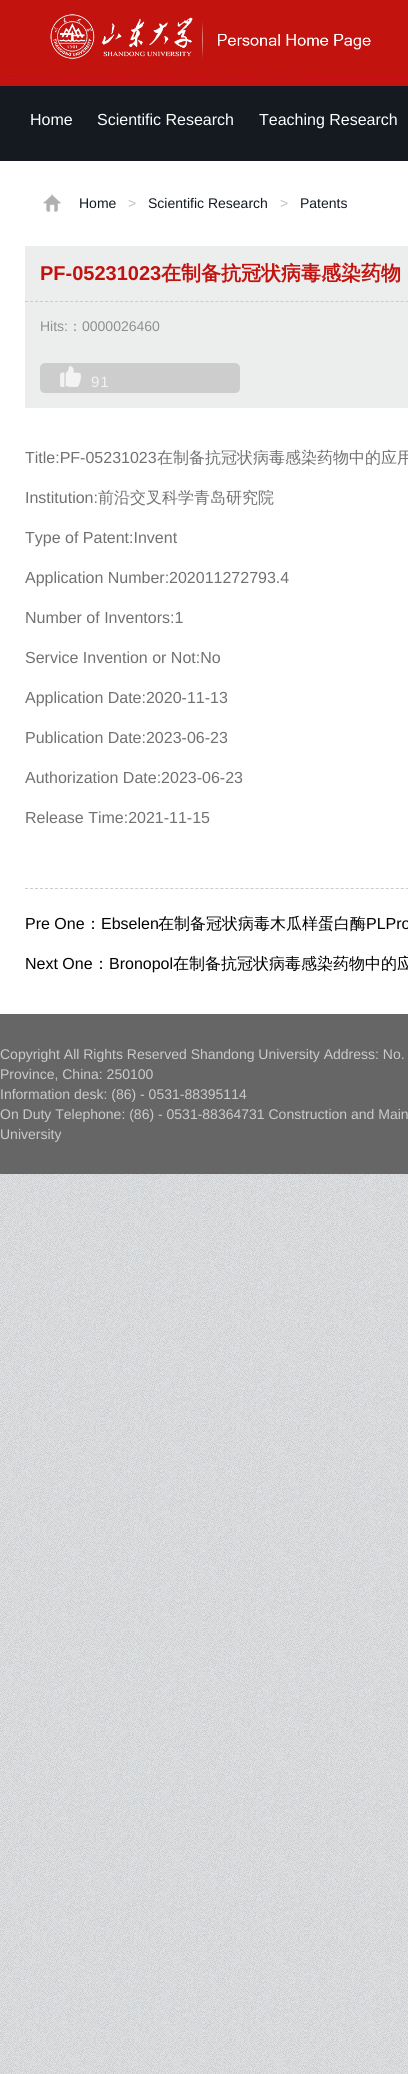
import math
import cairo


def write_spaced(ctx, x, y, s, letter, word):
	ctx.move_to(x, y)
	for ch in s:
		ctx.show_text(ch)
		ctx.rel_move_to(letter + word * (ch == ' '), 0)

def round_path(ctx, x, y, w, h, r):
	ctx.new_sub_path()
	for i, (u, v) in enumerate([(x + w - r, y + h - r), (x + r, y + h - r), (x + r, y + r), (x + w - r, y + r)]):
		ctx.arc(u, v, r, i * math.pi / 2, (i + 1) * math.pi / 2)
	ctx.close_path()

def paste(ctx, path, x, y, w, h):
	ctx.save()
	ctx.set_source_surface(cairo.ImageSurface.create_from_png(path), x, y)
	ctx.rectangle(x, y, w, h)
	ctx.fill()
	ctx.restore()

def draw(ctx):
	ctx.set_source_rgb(1, 1, 1)
	ctx.paint()
	paste(ctx, 'media/1.png', 0, 1174, 408, 900)
	paste(ctx, 'media/2.png', 0, 80, 408, 6)
	paste(ctx, 'media/3.png', 0, 78, 408, 2)
	ctx.set_source_rgb(0.765, 0.075, 0.059)
	ctx.rectangle(0, 0, 408, 78)
	ctx.fill()
	paste(ctx, 'media/4.png', 50, 14, 321, 45)
	ctx.set_source_rgb(0.082, 0.102, 0.125)
	ctx.rectangle(0, 86, 408, 75)
	ctx.fill()
	ctx.select_font_face('Liberation Sans')
	ctx.set_font_size(16)
	ctx.set_source_rgb(1, 1, 1)
	for x, y, s in [
		(30, 125, 'Home'),
		(97, 125, 'Scientific Research'),
		(259, 125, 'Teaching Research'),
	]:
		ctx.move_to(x, y)
		ctx.show_text(s)
	paste(ctx, 'media/5.png', 43, 194, 18, 18)
	ctx.set_font_size(14)
	ctx.set_source_rgb(0.082, 0.098, 0.129)
	ctx.move_to(79, 208)
	ctx.show_text('Home')
	ctx.set_source_rgb(0.757, 0.753, 0.753)
	ctx.move_to(128, 208)
	ctx.show_text('>')
	ctx.set_source_rgb(0.082, 0.098, 0.129)
	ctx.move_to(148, 208)
	ctx.show_text('Scientific Research')
	ctx.set_source_rgb(0.757, 0.753, 0.753)
	ctx.move_to(280, 208)
	ctx.show_text('>')
	ctx.set_source_rgb(0.082, 0.098, 0.129)
	ctx.move_to(300, 208)
	ctx.show_text('Patents')
	ctx.set_source_rgb(0.925, 0.929, 0.929)
	ctx.rectangle(25, 246, 383, 162)
	ctx.fill()
	ctx.select_font_face('Liberation Sans', cairo.FONT_SLANT_NORMAL, cairo.FONT_WEIGHT_BOLD)
	ctx.set_font_size(20)
	ctx.set_source_rgb(0.765, 0.075, 0.059)
	ctx.move_to(40, 280)
	ctx.show_text('PF-05231023')
	ctx.select_font_face('WenQuanYi Zen Hei', cairo.FONT_SLANT_NORMAL, cairo.FONT_WEIGHT_BOLD)
	ctx.move_to(161, 280)
	ctx.show_text('在制备抗冠状病毒感染药物')
	ctx.new_path()
	ctx.move_to(25, 301.5)
	ctx.line_to(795, 301.5)
	ctx.set_source_rgb(0.8, 0.8, 0.8)
	ctx.set_line_width(1)
	ctx.set_dash([3, 2.01])
	ctx.stroke()
	ctx.select_font_face('Liberation Sans')
	ctx.set_font_size(14)
	ctx.set_source_rgb(0.561, 0.561, 0.557)
	ctx.move_to(40, 331)
	ctx.show_text('Hits:')
	ctx.select_font_face('WenQuanYi Zen Hei Medium')
	ctx.move_to(68, 331)
	ctx.show_text('：')
	ctx.select_font_face('Liberation Sans')
	ctx.move_to(82, 331)
	ctx.show_text('0000026460')
	ctx.set_source_rgb(0.804, 0.804, 0.804)
	round_path(ctx, 40, 363, 200, 30, 5)
	ctx.fill()
	paste(ctx, 'media/6.png', 60, 366, 21, 21)
	ctx.set_font_size(15)
	ctx.set_source_rgb(0.953, 0.953, 0.953)
	write_spaced(ctx, 91, 387, '91', 1, 0)
	ctx.set_font_size(16)
	ctx.set_source_rgb(0.447, 0.443, 0.439)
	ctx.move_to(25, 463)
	ctx.show_text('Title:PF-05231023')
	ctx.select_font_face('WenQuanYi Zen Hei Medium')
	ctx.move_to(157, 463)
	ctx.show_text('在制备抗冠状病毒感染药物中的应用')
	ctx.select_font_face('Liberation Sans')
	ctx.move_to(25, 503)
	ctx.show_text('Institution:')
	ctx.select_font_face('WenQuanYi Zen Hei Medium')
	ctx.move_to(98, 503)
	ctx.show_text('前沿交叉科学青岛研究院')
	ctx.select_font_face('Liberation Sans')
	for x, y, s in [
		(25, 543, 'Type of Patent:Invent'),
		(25, 583, 'Application Number:202011272793.4'),
		(25, 623, 'Number of Inventors:1'),
		(25, 663, 'Service Invention or Not:No'),
		(25, 703, 'Application Date:2020-11-13'),
		(25, 743, 'Publication Date:2023-06-23'),
		(25, 783, 'Authorization Date:2023-06-23'),
		(25, 823, 'Release Time:2021-11-15'),
	]:
		ctx.move_to(x, y)
		ctx.show_text(s)
	ctx.new_path()
	ctx.move_to(25, 888.5)
	ctx.line_to(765, 888.5)
	ctx.set_source_rgb(0.8, 0.8, 0.8)
	ctx.stroke()
	ctx.set_source_rgb(0, 0, 0)
	ctx.move_to(25, 929)
	ctx.show_text('Pre One')
	ctx.select_font_face('WenQuanYi Zen Hei Medium')
	ctx.move_to(85, 929)
	ctx.show_text('：')
	ctx.select_font_face('Liberation Sans')
	ctx.move_to(101, 929)
	ctx.show_text('Ebselen')
	ctx.select_font_face('WenQuanYi Zen Hei Medium')
	ctx.move_to(158, 929)
	ctx.show_text('在制备冠状病毒木瓜样蛋白酶')
	ctx.select_font_face('Liberation Sans')
	ctx.move_to(366, 929)
	ctx.show_text('PLPro')
	ctx.move_to(25, 969)
	ctx.show_text('Next One')
	ctx.select_font_face('WenQuanYi Zen Hei Medium')
	ctx.move_to(93, 969)
	ctx.show_text('：')
	ctx.select_font_face('Liberation Sans')
	ctx.move_to(109, 969)
	ctx.show_text('Bronopol')
	ctx.select_font_face('WenQuanYi Zen Hei Medium')
	ctx.move_to(173, 969)
	ctx.show_text('在制备抗冠状病毒感染药物中的应')
	ctx.set_source_rgb(0.4, 0.4, 0.4)
	ctx.rectangle(0, 1014, 408, 160)
	ctx.fill()
	ctx.select_font_face('Liberation Sans')
	ctx.set_font_size(14)
	ctx.set_source_rgb(0.796, 0.796, 0.8)
	for x, y, s in [
		(0, 1059, 'Copyright All Rights Reserved Shandong University Address: No.'),
		(0, 1079, 'Province, China: 250100'),
		(0, 1099, 'Information desk: (86) - 0531-88395114'),
		(0, 1119, 'On Duty Telephone: (86) - 0531-88364731 Construction and Main'),
		(0, 1139, 'University'),
	]:
		ctx.move_to(x, y)
		ctx.show_text(s)


surface = cairo.ImageSurface(cairo.FORMAT_RGB24, 408, 2074)
ctx = cairo.Context(surface)
options = cairo.FontOptions()
options.set_hint_metrics(cairo.HINT_METRICS_OFF)
options.set_hint_style(cairo.HINT_STYLE_NONE)
ctx.set_font_options(options)
ctx.set_miter_limit(4)
draw(ctx)
surface.write_to_png('image.png')
